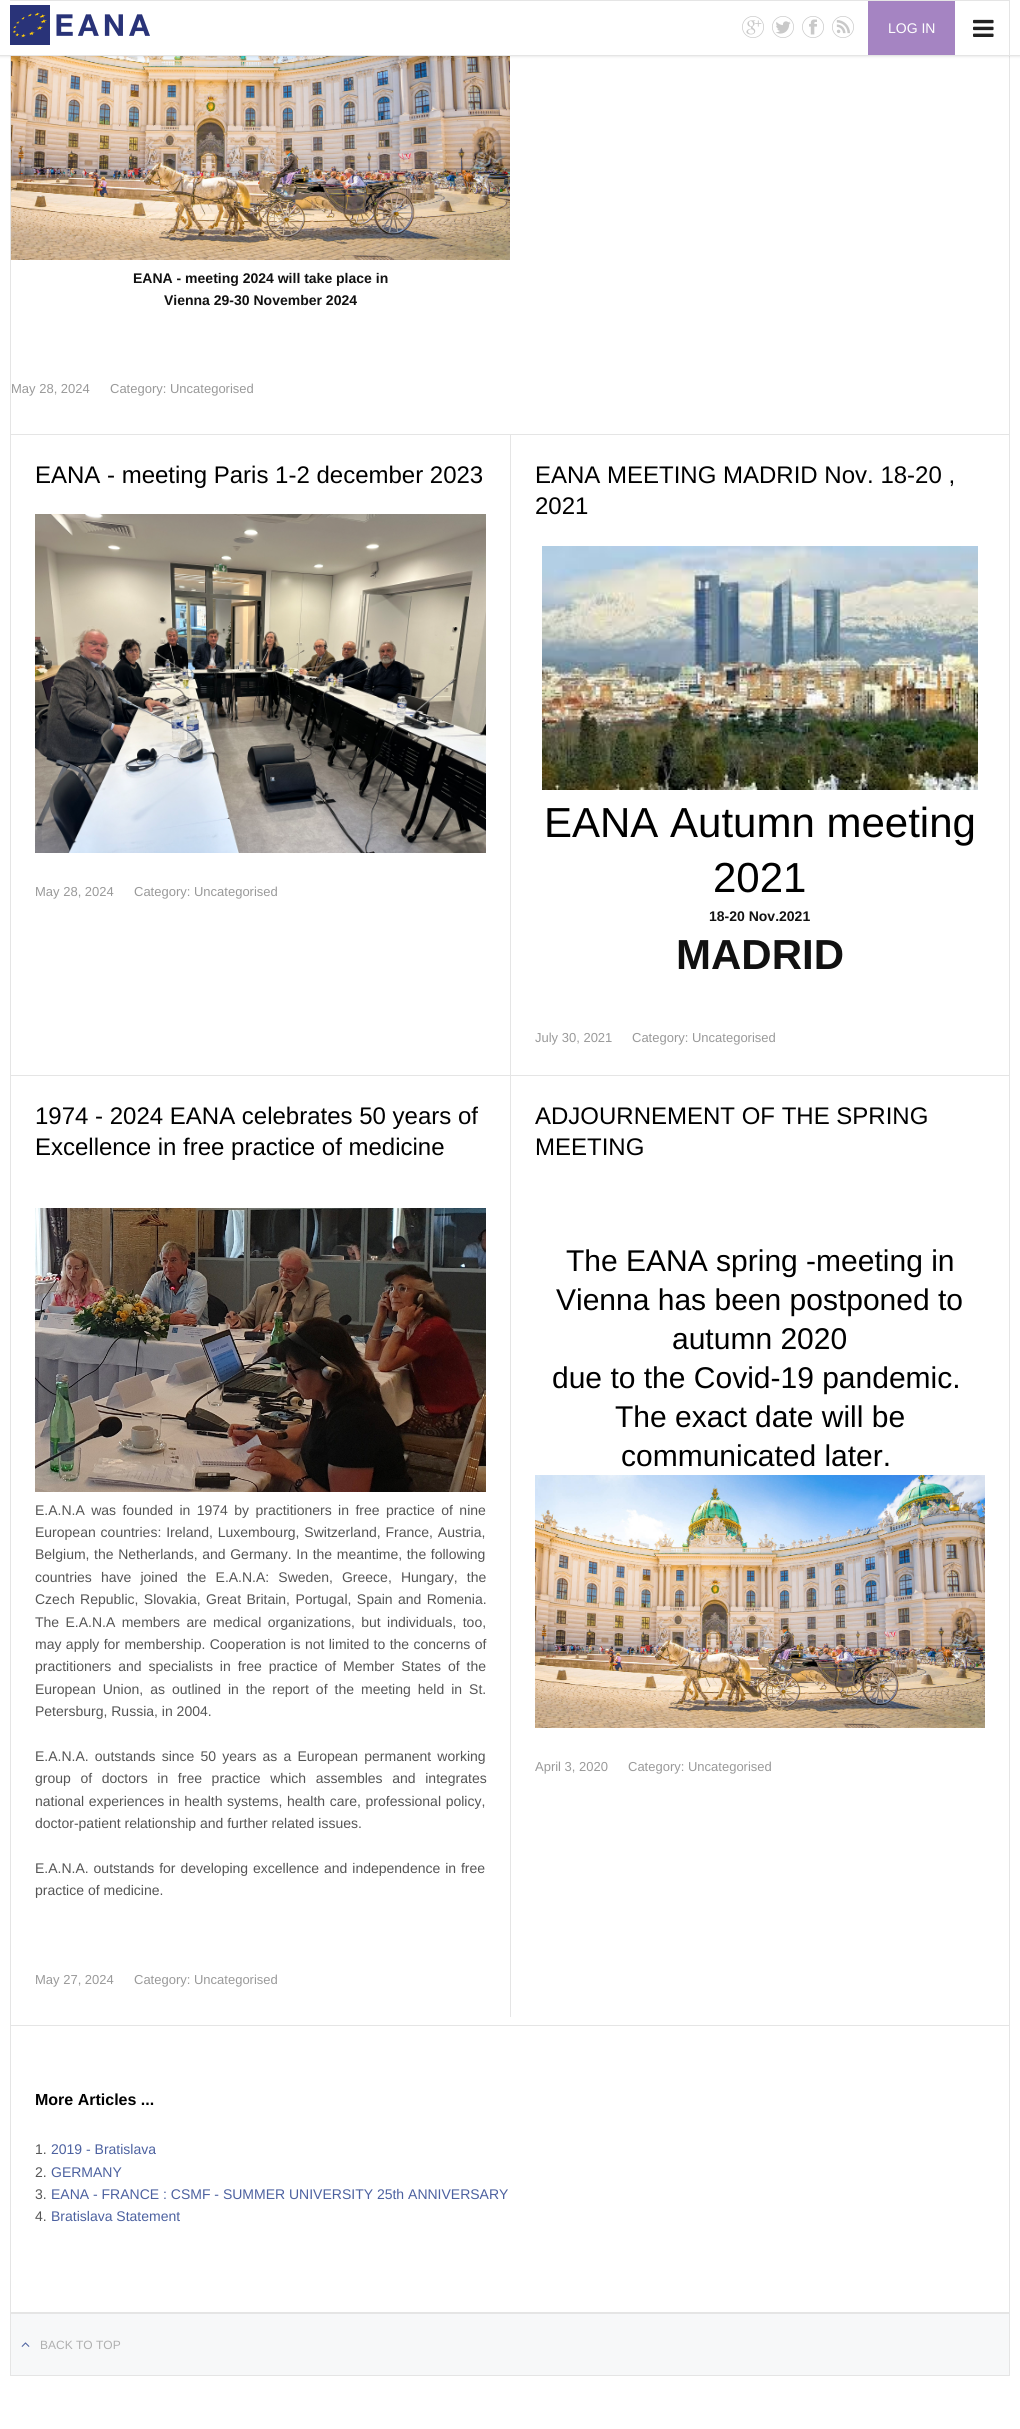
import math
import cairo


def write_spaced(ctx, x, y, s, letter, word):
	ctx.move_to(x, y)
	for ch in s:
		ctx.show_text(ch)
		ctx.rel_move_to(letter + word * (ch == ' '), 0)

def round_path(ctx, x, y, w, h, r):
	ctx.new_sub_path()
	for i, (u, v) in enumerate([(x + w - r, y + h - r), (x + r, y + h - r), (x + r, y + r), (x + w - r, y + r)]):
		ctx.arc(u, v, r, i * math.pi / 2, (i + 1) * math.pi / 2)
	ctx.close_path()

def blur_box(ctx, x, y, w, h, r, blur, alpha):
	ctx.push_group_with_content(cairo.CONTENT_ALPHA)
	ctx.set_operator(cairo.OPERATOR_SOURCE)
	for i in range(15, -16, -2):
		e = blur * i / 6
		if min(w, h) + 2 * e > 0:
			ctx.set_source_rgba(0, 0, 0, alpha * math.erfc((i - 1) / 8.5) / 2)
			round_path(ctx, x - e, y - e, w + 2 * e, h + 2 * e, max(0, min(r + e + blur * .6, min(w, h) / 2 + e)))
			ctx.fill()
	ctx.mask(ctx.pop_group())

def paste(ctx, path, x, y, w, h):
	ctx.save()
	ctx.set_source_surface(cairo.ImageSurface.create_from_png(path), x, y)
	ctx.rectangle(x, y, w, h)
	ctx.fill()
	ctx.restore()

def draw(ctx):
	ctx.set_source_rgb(1, 1, 1)
	ctx.paint()
	ctx.set_source_rgb(0.898, 0.898, 0.898)
	ctx.rectangle(1009, 56, 1, 2257)
	ctx.rectangle(10, 2312, 1000, 1)
	ctx.rectangle(10, 56, 1, 2257)
	ctx.fill()
	paste(ctx, 'media/7.png', 11, 56, 499, 204)
	ctx.set_source_rgb(0, 0, 0)
	blur_box(ctx, 0, 0, 1020, 56, 0, 1.5, 0.15)
	ctx.set_source_rgb(1, 1, 1)
	ctx.rectangle(0, 0, 1020, 55)
	ctx.fill()
	ctx.set_source_rgb(0.898, 0.898, 0.898)
	ctx.rectangle(0, 55, 1020, 1)
	ctx.fill()
	paste(ctx, 'media/1.png', 10, 5, 140, 40)
	ctx.rectangle(10, 0, 1000, 1)
	ctx.fill()
	ctx.rectangle(1009, 0, 1, 55)
	ctx.fill()
	paste(ctx, 'media/2.png', 742, 16, 22, 22)
	paste(ctx, 'media/3.png', 772, 16, 22, 22)
	paste(ctx, 'media/4.png', 802, 16, 22, 22)
	paste(ctx, 'media/5.png', 832, 16, 22, 22)
	ctx.set_source_rgb(0.647, 0.518, 0.761)
	ctx.rectangle(868, 1, 87, 54)
	ctx.fill()
	ctx.select_font_face('Liberation Sans')
	ctx.set_font_size(14)
	ctx.set_source_rgb(1, 1, 1)
	ctx.move_to(888, 33)
	ctx.show_text('LOG IN')
	paste(ctx, 'media/6.png', 973, 19, 21, 18)
	ctx.select_font_face('Liberation Sans', cairo.FONT_SLANT_NORMAL, cairo.FONT_WEIGHT_BOLD)
	ctx.set_source_rgb(0.067, 0.067, 0.067)
	ctx.move_to(133, 283)
	ctx.show_text('EANA - meeting 2024 will take place in')
	ctx.move_to(164, 305)
	ctx.show_text('Vienna 29-30 November 2024')
	ctx.select_font_face('Liberation Sans')
	ctx.set_font_size(13)
	ctx.set_source_rgb(0.6, 0.6, 0.6)
	ctx.move_to(11, 393)
	ctx.show_text('May 28, 2024')
	ctx.move_to(110, 393)
	ctx.show_text('Category: Uncategorised')
	ctx.set_source_rgb(0.898, 0.898, 0.898)
	ctx.rectangle(11, 434, 998, 1)
	ctx.fill()
	ctx.set_font_size(24)
	ctx.set_source_rgb(0, 0, 0)
	ctx.move_to(35, 483)
	ctx.show_text('EANA - meeting Paris 1-2 december 2023')
	paste(ctx, 'media/8.png', 35, 514, 451, 339)
	ctx.set_font_size(13)
	ctx.set_source_rgb(0.6, 0.6, 0.6)
	ctx.move_to(35, 896)
	ctx.show_text('May 28, 2024')
	ctx.move_to(134, 896)
	ctx.show_text('Category: Uncategorised')
	ctx.set_source_rgb(0.898, 0.898, 0.898)
	ctx.rectangle(510, 434, 1, 641)
	ctx.fill()
	ctx.set_font_size(24)
	ctx.set_source_rgb(0, 0, 0)
	ctx.move_to(535, 483)
	ctx.show_text('EANA MEETING MADRID Nov. 18-20 ,')
	ctx.move_to(535, 514)
	ctx.show_text('2021')
	paste(ctx, 'media/9.png', 542, 546, 436, 244)
	ctx.set_font_size(42)
	ctx.move_to(544, 837)
	ctx.show_text('EANA Autumn meeting')
	ctx.move_to(713, 892)
	ctx.show_text('2021')
	ctx.select_font_face('Liberation Sans', cairo.FONT_SLANT_NORMAL, cairo.FONT_WEIGHT_BOLD)
	ctx.set_font_size(14)
	ctx.set_source_rgb(0.067, 0.067, 0.067)
	ctx.move_to(709, 921)
	ctx.show_text('18-20 Nov.2021')
	ctx.set_font_size(42)
	ctx.move_to(676, 969)
	ctx.show_text('MADRID')
	ctx.select_font_face('Liberation Sans')
	ctx.set_font_size(13)
	ctx.set_source_rgb(0.6, 0.6, 0.6)
	ctx.move_to(535, 1042)
	ctx.show_text('July 30, 2021')
	ctx.move_to(632, 1042)
	ctx.show_text('Category: Uncategorised')
	ctx.set_source_rgb(0.898, 0.898, 0.898)
	ctx.rectangle(11, 1075, 998, 1)
	ctx.fill()
	ctx.set_font_size(24)
	ctx.set_source_rgb(0, 0, 0)
	ctx.move_to(35, 1124)
	ctx.show_text('1974 - 2024 EANA celebrates 50 years of')
	ctx.move_to(35, 1155)
	ctx.show_text('Excellence in free practice of medicine')
	paste(ctx, 'media/10.png', 35, 1208, 451, 284)
	ctx.set_font_size(14)
	ctx.set_source_rgb(0.333, 0.333, 0.333)
	write_spaced(ctx, 35, 1515, 'E.A.N.A was founded in 1974 by practitioners in free practice of nine', 0, 2.5)
	write_spaced(ctx, 35, 1537, 'European countries: Ireland, Luxembourg, Switzerland, France, Austria,', 0, 1)
	write_spaced(ctx, 35, 1559, 'Belgium, the Netherlands, and Germany. In the meantime, the following', 0, 0.75)
	write_spaced(ctx, 35, 1582, 'countries have joined the E.A.N.A: Sweden, Greece, Hungary, the', 0, 5.25)
	write_spaced(ctx, 35, 1604, 'Czech Republic, Slovakia, Great Britain, Portugal, Spain and Romenia.', 0, 1.5)
	write_spaced(ctx, 35, 1627, 'The E.A.N.A members are medical organizations, but individuals, too,', 0, 2.5)
	write_spaced(ctx, 35, 1649, 'may apply for membership. Cooperation is not limited to the concerns of', 0, 0.5)
	write_spaced(ctx, 35, 1671, 'practitioners and specialists in free practice of Member States of the', 0, 3)
	write_spaced(ctx, 35, 1694, 'European Union, as outlined in the report of the meeting held in St.', 0, 3.1)
	ctx.move_to(35, 1716)
	ctx.show_text('Petersburg, Russia, in 2004.')
	write_spaced(ctx, 35, 1761, 'E.A.N.A. outstands since 50 years as a European permanent working', 0, 2.25)
	write_spaced(ctx, 35, 1783, 'group of doctors in free practice which assembles and integrates', 0, 5.75)
	write_spaced(ctx, 35, 1806, 'national experiences in health systems, health care, professional policy,', 0, 0.75)
	ctx.move_to(35, 1828)
	ctx.show_text('doctor-patient relationship and further related issues.')
	write_spaced(ctx, 35, 1873, 'E.A.N.A. outstands for developing excellence and independence in free', 0, 1)
	ctx.move_to(35, 1895)
	ctx.show_text('practice of medicine.')
	ctx.set_font_size(13)
	ctx.set_source_rgb(0.6, 0.6, 0.6)
	ctx.move_to(35, 1984)
	ctx.show_text('May 27, 2024')
	ctx.move_to(134, 1984)
	ctx.show_text('Category: Uncategorised')
	ctx.set_source_rgb(0.898, 0.898, 0.898)
	ctx.rectangle(510, 1075, 1, 942)
	ctx.fill()
	ctx.set_font_size(24)
	ctx.set_source_rgb(0, 0, 0)
	ctx.move_to(535, 1124)
	ctx.show_text('ADJOURNEMENT OF THE SPRING')
	ctx.move_to(535, 1155)
	ctx.show_text('MEETING')
	ctx.set_font_size(30)
	for x, y, s in [
		(566, 1271, 'The EANA spring -meeting in'),
		(556, 1310, 'Vienna has been postponed to'),
		(672, 1349, 'autumn 2020'),
		(552, 1388, 'due to the Covid-19 pandemic.'),
		(615, 1427, 'The exact date will be'),
		(621, 1466, 'communicated later.'),
	]:
		ctx.move_to(x, y)
		ctx.show_text(s)
	paste(ctx, 'media/11.png', 535, 1475, 450, 253)
	ctx.set_font_size(13)
	ctx.set_source_rgb(0.6, 0.6, 0.6)
	ctx.move_to(535, 1771)
	ctx.show_text('April 3, 2020')
	ctx.move_to(628, 1771)
	ctx.show_text('Category: Uncategorised')
	ctx.set_source_rgb(0.898, 0.898, 0.898)
	ctx.rectangle(11, 2025, 998, 1)
	ctx.fill()
	ctx.select_font_face('Liberation Sans', cairo.FONT_SLANT_NORMAL, cairo.FONT_WEIGHT_BOLD)
	ctx.set_font_size(16)
	ctx.set_source_rgb(0, 0, 0)
	ctx.move_to(35, 2105)
	ctx.show_text('More Articles ...')
	ctx.select_font_face('Liberation Sans')
	ctx.set_font_size(14)
	ctx.set_source_rgb(0.333, 0.333, 0.333)
	ctx.move_to(35, 2154)
	ctx.show_text('1.')
	ctx.set_source_rgb(0.298, 0.38, 0.627)
	ctx.move_to(51, 2154)
	ctx.show_text('2019 - Bratislava')
	ctx.set_source_rgb(0.333, 0.333, 0.333)
	ctx.move_to(35, 2177)
	ctx.show_text('2.')
	ctx.set_source_rgb(0.298, 0.38, 0.627)
	ctx.move_to(51, 2177)
	ctx.show_text('GERMANY')
	ctx.set_source_rgb(0.333, 0.333, 0.333)
	ctx.move_to(35, 2199)
	ctx.show_text('3.')
	ctx.set_source_rgb(0.298, 0.38, 0.627)
	ctx.move_to(51, 2199)
	ctx.show_text('EANA - FRANCE : CSMF - SUMMER UNIVERSITY 25th ANNIVERSARY')
	ctx.set_source_rgb(0.333, 0.333, 0.333)
	ctx.move_to(35, 2221)
	ctx.show_text('4.')
	ctx.set_source_rgb(0.298, 0.38, 0.627)
	ctx.move_to(51, 2221)
	ctx.show_text('Bratislava Statement')
	ctx.set_source_rgb(0.965, 0.969, 0.976)
	ctx.rectangle(10.5, 2313.5, 999, 62)
	ctx.fill_preserve()
	ctx.set_source_rgb(0.898, 0.898, 0.898)
	ctx.set_line_width(1)
	ctx.stroke()
	paste(ctx, 'media/12.png', 21, 2342, 9, 5)
	ctx.set_font_size(12)
	ctx.set_source_rgb(0.686, 0.686, 0.686)
	ctx.move_to(40, 2349)
	ctx.show_text('BACK TO TOP')


surface = cairo.ImageSurface(cairo.FORMAT_RGB24, 1020, 2429)
ctx = cairo.Context(surface)
options = cairo.FontOptions()
options.set_hint_metrics(cairo.HINT_METRICS_OFF)
options.set_hint_style(cairo.HINT_STYLE_NONE)
ctx.set_font_options(options)
ctx.set_miter_limit(4)
draw(ctx)
surface.write_to_png('image.png')
